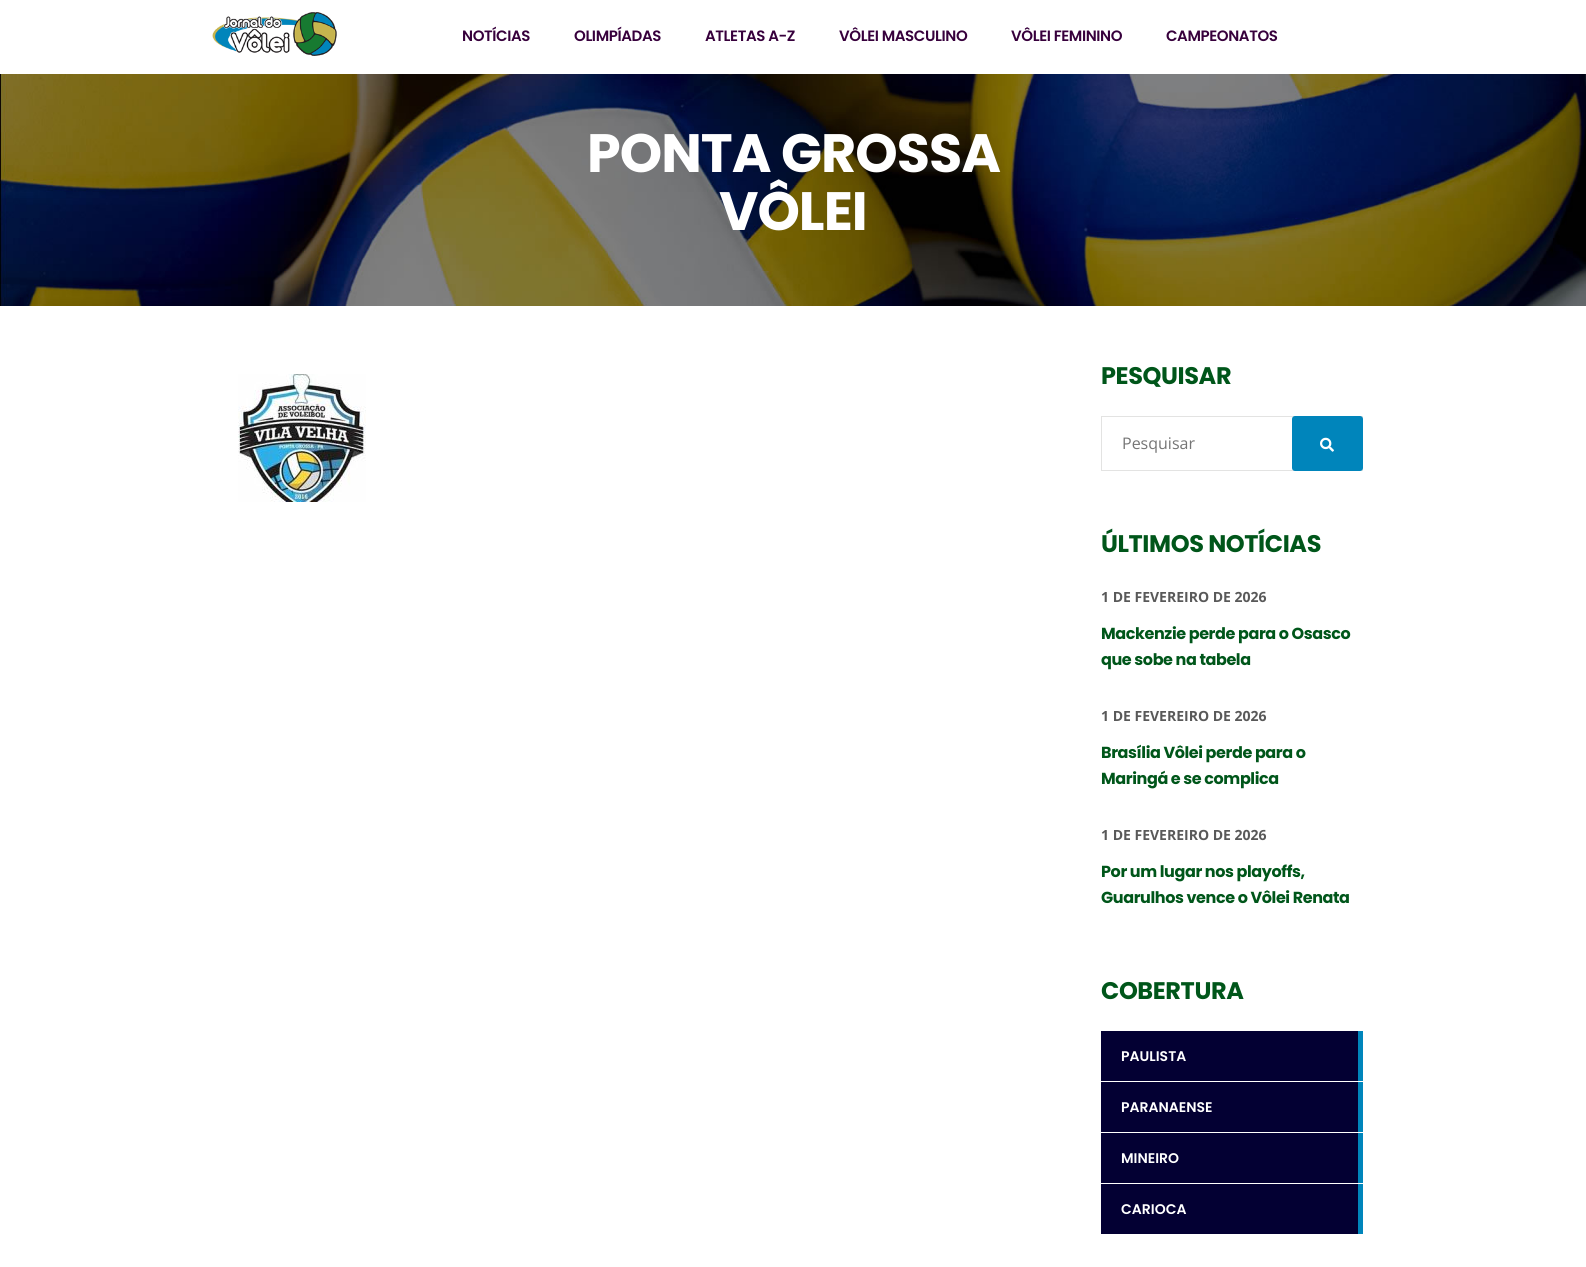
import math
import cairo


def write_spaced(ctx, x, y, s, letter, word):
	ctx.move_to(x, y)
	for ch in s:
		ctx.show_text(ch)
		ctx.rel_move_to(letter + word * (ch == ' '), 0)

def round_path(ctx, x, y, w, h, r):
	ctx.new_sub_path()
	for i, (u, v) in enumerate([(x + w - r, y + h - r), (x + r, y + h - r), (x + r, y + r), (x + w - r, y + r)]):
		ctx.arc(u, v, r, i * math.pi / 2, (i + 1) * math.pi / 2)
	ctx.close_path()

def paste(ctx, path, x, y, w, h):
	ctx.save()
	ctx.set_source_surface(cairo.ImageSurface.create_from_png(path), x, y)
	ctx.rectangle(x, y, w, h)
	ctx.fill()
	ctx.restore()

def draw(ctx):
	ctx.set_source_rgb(1, 1, 1)
	ctx.paint()
	paste(ctx, 'media/1.png', 212, 12, 125, 44)
	ctx.select_font_face('Poppins SemiBold')
	ctx.set_font_size(15)
	ctx.set_source_rgb(0.216, 0, 0.235)
	for x, y, s in [
		(462, 41, 'NOTÍCIAS'),
		(574, 41, 'OLIMPÍADAS'),
		(705, 41, 'ATLETAS A-Z'),
		(839, 41, 'VÔLEI MASCULINO'),
		(1011, 41, 'VÔLEI FEMININO'),
		(1166, 41, 'CAMPEONATOS'),
	]:
		write_spaced(ctx, x, y, s, -0.4, 0)
	paste(ctx, 'media/2.png', 0, 74, 1586, 232)
	ctx.select_font_face('Poppins', cairo.FONT_SLANT_NORMAL, cairo.FONT_WEIGHT_BOLD)
	ctx.set_font_size(54)
	ctx.set_source_rgb(1, 1, 1)
	write_spaced(ctx, 587, 172, 'PONTA GROSSA', -1, 0)
	write_spaced(ctx, 719, 230, 'VÔLEI', -1, 0)
	paste(ctx, 'media/3.png', 238, 374, 128, 128)
	ctx.set_font_size(24)
	ctx.set_source_rgb(0, 0.337, 0.102)
	write_spaced(ctx, 1101, 384, 'PESQUISAR', -0.4, 0)
	ctx.rectangle(1101.5, 416.5, 261, 54)
	ctx.set_source_rgb(0.89, 0.89, 0.886)
	ctx.set_line_width(1)
	ctx.stroke()
	ctx.select_font_face('Open Sans')
	ctx.set_font_size(16)
	ctx.set_source_rgb(0.459, 0.459, 0.459)
	ctx.move_to(1122, 449)
	ctx.show_text('Pesquisar')
	round_path(ctx, 1293, 417, 69, 53, 2)
	ctx.set_source_rgb(0, 0.522, 0.733)
	ctx.set_line_width(2)
	ctx.stroke()
	ctx.rectangle(1294, 418, 67, 51)
	ctx.fill()
	paste(ctx, 'media/4.png', 1320, 437, 14, 15)
	ctx.select_font_face('Poppins', cairo.FONT_SLANT_NORMAL, cairo.FONT_WEIGHT_BOLD)
	ctx.set_font_size(24)
	ctx.set_source_rgb(0, 0.337, 0.102)
	write_spaced(ctx, 1101, 552, 'ÚLTIMOS NOTÍCIAS', -0.4, 0)
	ctx.select_font_face('Open Sans', cairo.FONT_SLANT_NORMAL, cairo.FONT_WEIGHT_BOLD)
	ctx.set_font_size(14)
	ctx.set_source_rgb(0.349, 0.349, 0.349)
	ctx.move_to(1101, 602)
	ctx.show_text('1 DE FEVEREIRO DE 2026')
	ctx.select_font_face('Poppins', cairo.FONT_SLANT_NORMAL, cairo.FONT_WEIGHT_BOLD)
	ctx.set_font_size(16)
	ctx.set_source_rgb(0, 0.337, 0.102)
	write_spaced(ctx, 1101, 639, 'Mackenzie perde para o Osasco', -0.4, 0)
	write_spaced(ctx, 1101, 665, 'que sobe na tabela', -0.4, 0)
	ctx.select_font_face('Open Sans', cairo.FONT_SLANT_NORMAL, cairo.FONT_WEIGHT_BOLD)
	ctx.set_font_size(14)
	ctx.set_source_rgb(0.349, 0.349, 0.349)
	ctx.move_to(1101, 721)
	ctx.show_text('1 DE FEVEREIRO DE 2026')
	ctx.select_font_face('Poppins', cairo.FONT_SLANT_NORMAL, cairo.FONT_WEIGHT_BOLD)
	ctx.set_font_size(16)
	ctx.set_source_rgb(0, 0.337, 0.102)
	write_spaced(ctx, 1101, 758, 'Brasília Vôlei perde para o', -0.4, 0)
	write_spaced(ctx, 1101, 784, 'Maringá e se complica', -0.4, 0)
	ctx.select_font_face('Open Sans', cairo.FONT_SLANT_NORMAL, cairo.FONT_WEIGHT_BOLD)
	ctx.set_font_size(14)
	ctx.set_source_rgb(0.349, 0.349, 0.349)
	ctx.move_to(1101, 840)
	ctx.show_text('1 DE FEVEREIRO DE 2026')
	ctx.select_font_face('Poppins', cairo.FONT_SLANT_NORMAL, cairo.FONT_WEIGHT_BOLD)
	ctx.set_font_size(16)
	ctx.set_source_rgb(0, 0.337, 0.102)
	write_spaced(ctx, 1101, 877, 'Por um lugar nos playoffs,', -0.4, 0)
	write_spaced(ctx, 1101, 903, 'Guarulhos vence o Vôlei Renata', -0.4, 0)
	ctx.set_font_size(24)
	write_spaced(ctx, 1101, 999, 'COBERTURA', -0.4, 0)
	ctx.set_source_rgb(0.012, 0, 0.2)
	ctx.rectangle(1101, 1031, 257, 50)
	ctx.fill()
	ctx.select_font_face('Poppins SemiBold')
	ctx.set_font_size(14)
	ctx.set_source_rgb(1, 1, 1)
	ctx.move_to(1121, 1061)
	ctx.show_text('PAULISTA')
	ctx.set_source_rgb(0, 0.522, 0.733)
	ctx.rectangle(1358, 1031, 5, 50)
	ctx.fill()
	ctx.set_source_rgb(0.012, 0, 0.2)
	ctx.rectangle(1101, 1082, 257, 50)
	ctx.fill()
	ctx.set_source_rgb(1, 1, 1)
	ctx.move_to(1121, 1112)
	ctx.show_text('PARANAENSE')
	ctx.set_source_rgb(0, 0.522, 0.733)
	ctx.rectangle(1358, 1082, 5, 50)
	ctx.fill()
	ctx.set_source_rgb(0.012, 0, 0.2)
	ctx.rectangle(1101, 1133, 257, 50)
	ctx.fill()
	ctx.set_source_rgb(1, 1, 1)
	ctx.move_to(1121, 1163)
	ctx.show_text('MINEIRO')
	ctx.set_source_rgb(0, 0.522, 0.733)
	ctx.rectangle(1358, 1133, 5, 50)
	ctx.fill()
	ctx.set_source_rgb(0.012, 0, 0.2)
	ctx.rectangle(1101, 1184, 257, 50)
	ctx.fill()
	ctx.set_source_rgb(1, 1, 1)
	ctx.move_to(1121, 1214)
	ctx.show_text('CARIOCA')
	ctx.set_source_rgb(0, 0.522, 0.733)
	ctx.rectangle(1358, 1184, 5, 50)
	ctx.fill()


surface = cairo.ImageSurface(cairo.FORMAT_RGB24, 1586, 1267)
ctx = cairo.Context(surface)
options = cairo.FontOptions()
options.set_hint_metrics(cairo.HINT_METRICS_OFF)
options.set_hint_style(cairo.HINT_STYLE_NONE)
ctx.set_font_options(options)
ctx.set_miter_limit(4)
draw(ctx)
surface.write_to_png('image.png')
